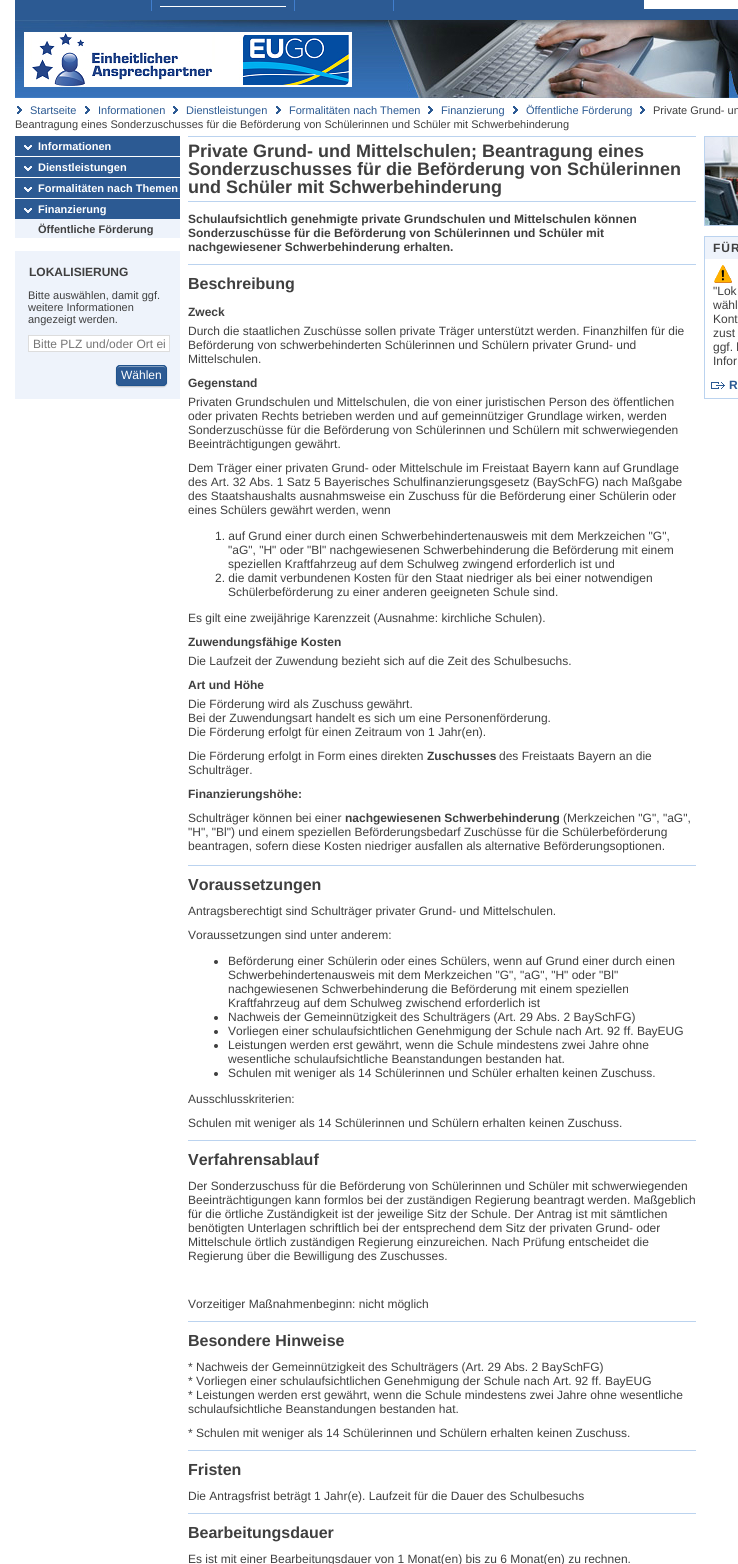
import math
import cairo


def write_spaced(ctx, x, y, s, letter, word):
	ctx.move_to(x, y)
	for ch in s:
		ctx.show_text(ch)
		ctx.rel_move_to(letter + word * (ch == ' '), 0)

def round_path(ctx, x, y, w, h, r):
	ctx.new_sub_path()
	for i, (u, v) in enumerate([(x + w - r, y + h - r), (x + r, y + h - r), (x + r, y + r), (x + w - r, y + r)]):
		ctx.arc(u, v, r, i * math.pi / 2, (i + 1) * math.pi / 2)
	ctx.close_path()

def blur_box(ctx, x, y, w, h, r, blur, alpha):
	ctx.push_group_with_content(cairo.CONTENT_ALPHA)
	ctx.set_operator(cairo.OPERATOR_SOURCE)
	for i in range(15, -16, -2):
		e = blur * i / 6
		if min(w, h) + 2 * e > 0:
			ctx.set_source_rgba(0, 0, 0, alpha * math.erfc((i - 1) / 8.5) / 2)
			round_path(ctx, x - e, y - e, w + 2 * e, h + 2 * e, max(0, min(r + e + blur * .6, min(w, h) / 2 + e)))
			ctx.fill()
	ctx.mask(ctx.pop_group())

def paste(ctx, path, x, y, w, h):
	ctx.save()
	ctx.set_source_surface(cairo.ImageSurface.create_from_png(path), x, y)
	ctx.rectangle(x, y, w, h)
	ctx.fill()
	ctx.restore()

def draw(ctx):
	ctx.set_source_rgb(1, 1, 1)
	ctx.paint()
	ctx.set_source_rgb(0.173, 0.353, 0.576)
	ctx.rectangle(15, 0, 723, 20)
	ctx.fill()
	ctx.set_source_rgb(0.255, 0.494, 0.804)
	ctx.rectangle(151, 0, 1, 11)
	ctx.rectangle(294, 0, 1, 11)
	ctx.fill()
	ctx.set_source_rgb(1, 1, 1)
	ctx.rectangle(160, 6, 126, 1)
	ctx.fill()
	ctx.set_source_rgb(0.255, 0.494, 0.804)
	ctx.rectangle(393, 0, 1, 11)
	ctx.fill()
	ctx.set_source_rgb(1, 1, 1)
	ctx.rectangle(644, 0, 94, 9)
	ctx.fill()
	paste(ctx, 'media/1.png', 15, 20, 723, 78)
	paste(ctx, 'media/2.png', 17, 106, 5, 8)
	ctx.select_font_face('Liberation Sans')
	ctx.set_font_size(11)
	ctx.set_source_rgb(0.173, 0.353, 0.576)
	ctx.move_to(30, 114)
	ctx.show_text('Startseite')
	paste(ctx, 'media/2.png', 85, 106, 5, 8)
	ctx.move_to(98, 114)
	ctx.show_text('Informationen')
	paste(ctx, 'media/2.png', 173, 106, 5, 8)
	ctx.move_to(186, 114)
	ctx.show_text('Dienstleistungen')
	paste(ctx, 'media/2.png', 276, 106, 5, 8)
	ctx.move_to(289, 114)
	ctx.show_text('Formalitäten nach Themen')
	paste(ctx, 'media/2.png', 428, 106, 5, 8)
	ctx.move_to(441, 114)
	ctx.show_text('Finanzierung')
	paste(ctx, 'media/2.png', 513, 106, 5, 8)
	ctx.move_to(526, 114)
	ctx.show_text('Öffentliche Förderung')
	paste(ctx, 'media/2.png', 640, 106, 5, 8)
	ctx.set_source_rgb(0.247, 0.247, 0.247)
	ctx.move_to(653, 114)
	ctx.show_text('Private Grund- un')
	ctx.move_to(15, 128)
	ctx.show_text('Beantragung eines Sonderzuschusses für die Beförderung von Schülerinnen und Schüler mit Schwerbehinderung')
	ctx.set_source_rgb(0.173, 0.353, 0.576)
	ctx.rectangle(15, 136, 165, 20)
	ctx.fill()
	paste(ctx, 'media/3.png', 24, 145, 8, 5)
	ctx.select_font_face('Liberation Sans', cairo.FONT_SLANT_NORMAL, cairo.FONT_WEIGHT_BOLD)
	ctx.set_source_rgb(1, 1, 1)
	ctx.move_to(38, 150)
	ctx.show_text('Informationen')
	ctx.set_source_rgb(0.173, 0.353, 0.576)
	ctx.rectangle(15, 157, 165, 20)
	ctx.fill()
	paste(ctx, 'media/3.png', 24, 166, 8, 5)
	ctx.set_source_rgb(1, 1, 1)
	ctx.move_to(38, 171)
	ctx.show_text('Dienstleistungen')
	ctx.set_source_rgb(0.173, 0.353, 0.576)
	ctx.rectangle(15, 178, 165, 20)
	ctx.fill()
	paste(ctx, 'media/3.png', 24, 187, 8, 5)
	ctx.set_source_rgb(1, 1, 1)
	ctx.move_to(38, 192)
	ctx.show_text('Formalitäten nach Themen')
	ctx.set_source_rgb(0.173, 0.353, 0.576)
	ctx.rectangle(15, 199, 165, 20)
	ctx.fill()
	paste(ctx, 'media/3.png', 24, 208, 8, 5)
	ctx.set_source_rgb(1, 1, 1)
	ctx.move_to(38, 213)
	ctx.show_text('Finanzierung')
	ctx.set_source_rgb(0.933, 0.953, 0.984)
	ctx.rectangle(15, 219, 165, 19)
	ctx.fill()
	ctx.set_source_rgb(0.247, 0.247, 0.247)
	ctx.move_to(38, 233)
	ctx.show_text('Öffentliche Förderung')
	ctx.set_source_rgb(0.933, 0.953, 0.984)
	ctx.rectangle(15, 251, 165, 148)
	ctx.fill()
	ctx.set_font_size(12)
	ctx.set_source_rgb(0.247, 0.247, 0.247)
	ctx.move_to(29, 276)
	ctx.show_text('LOKALISIERUNG')
	ctx.select_font_face('Liberation Sans')
	ctx.set_font_size(11)
	for x, y, s in [
		(28, 299, 'Bitte auswählen, damit ggf.'),
		(28, 311, 'weitere Informationen'),
		(28, 323, 'angezeigt werden.'),
	]:
		ctx.move_to(x, y)
		ctx.show_text(s)
	ctx.set_source_rgb(1, 1, 1)
	ctx.rectangle(28.5, 335.5, 141, 16)
	ctx.fill_preserve()
	ctx.set_source_rgb(0.867, 0.867, 0.867)
	ctx.set_line_width(1)
	ctx.stroke()
	ctx.set_font_size(12)
	ctx.set_source_rgb(0.459, 0.459, 0.459)
	ctx.move_to(33, 348)
	ctx.show_text('Bitte PLZ und/oder Ort ei')
	ctx.set_source_rgb(0, 0, 0)
	blur_box(ctx, 116, 366, 51, 21, 4, 0.5, 0.2)
	ctx.set_source_rgb(0.173, 0.353, 0.576)
	round_path(ctx, 116, 365, 51, 21, 4)
	ctx.fill()
	ctx.set_source_rgb(0.502, 0.612, 0.745)
	ctx.new_path()
	ctx.move_to(120, 367)
	ctx.line_to(163, 367)
	ctx.curve_to(165, 367, 166, 368, 166, 370)
	ctx.curve_to(166, 364, 160, 366, 156, 366)
	ctx.line_to(127, 366)
	ctx.curve_to(123, 366, 117, 364, 117, 370)
	ctx.curve_to(117, 368, 118, 367, 120, 367)
	ctx.close_path()
	ctx.fill()
	round_path(ctx, 116.5, 365.5, 50, 20, 3.5)
	ctx.set_source_rgb(0.125, 0.325, 0.553)
	ctx.stroke()
	ctx.set_source_rgb(1, 1, 1)
	ctx.move_to(121, 379)
	ctx.show_text('Wählen')
	ctx.set_source_rgb(0.733, 0.827, 0.937)
	ctx.rectangle(188, 136, 508, 1)
	ctx.fill()
	ctx.rectangle(188, 201, 508, 1)
	ctx.fill()
	ctx.select_font_face('Liberation Sans', cairo.FONT_SLANT_NORMAL, cairo.FONT_WEIGHT_BOLD)
	ctx.set_font_size(18)
	ctx.set_source_rgb(0.247, 0.247, 0.247)
	for x, y, s in [
		(188, 157, 'Private Grund- und Mittelschulen; Beantragung eines'),
		(188, 175, 'Sonderzuschusses für die Beförderung von Schülerinnen'),
		(188, 193, 'und Schüler mit Schwerbehinderung'),
	]:
		ctx.move_to(x, y)
		ctx.show_text(s)
	ctx.set_source_rgb(0.733, 0.827, 0.937)
	ctx.rectangle(188, 264, 508, 1)
	ctx.fill()
	ctx.set_font_size(12)
	ctx.set_source_rgb(0.247, 0.247, 0.247)
	for x, y, s in [
		(188, 223, 'Schulaufsichtlich genehmigte private Grundschulen und Mittelschulen können'),
		(188, 237, 'Sonderzuschüsse für die Beförderung von Schülerinnen und Schüler mit'),
		(188, 251, 'nachgewiesener Schwerbehinderung erhalten.'),
	]:
		ctx.move_to(x, y)
		ctx.show_text(s)
	ctx.set_source_rgb(0.733, 0.827, 0.937)
	ctx.rectangle(188, 865, 508, 1)
	ctx.fill()
	ctx.set_font_size(16)
	ctx.set_source_rgb(0.247, 0.247, 0.247)
	ctx.move_to(188, 289)
	ctx.show_text('Beschreibung')
	ctx.set_font_size(12)
	ctx.move_to(188, 316)
	ctx.show_text('Zweck')
	ctx.select_font_face('Liberation Sans')
	for x, y, s in [
		(188, 335, 'Durch die staatlichen Zuschüsse sollen private Träger unterstützt werden. Finanzhilfen für die'),
		(188, 349, 'Beförderung von schwerbehinderten Schülerinnen und Schülern privater Grund- und'),
		(188, 363, 'Mittelschulen.'),
	]:
		ctx.move_to(x, y)
		ctx.show_text(s)
	ctx.select_font_face('Liberation Sans', cairo.FONT_SLANT_NORMAL, cairo.FONT_WEIGHT_BOLD)
	ctx.move_to(188, 387)
	ctx.show_text('Gegenstand')
	ctx.select_font_face('Liberation Sans')
	for x, y, s in [
		(188, 406, 'Privaten Grundschulen und Mittelschulen, die von einer juristischen Person des öffentlichen'),
		(188, 420, 'oder privaten Rechts betrieben werden und auf gemeinnütziger Grundlage wirken, werden'),
		(188, 434, 'Sonderzuschüsse für die Beförderung von Schülerinnen und Schülern mit schwerwiegenden'),
		(188, 448, 'Beeinträchtigungen gewährt.'),
		(188, 472, 'Dem Träger einer privaten Grund- oder Mittelschule im Freistaat Bayern kann auf Grundlage'),
		(188, 486, 'des Art. 32 Abs. 1 Satz 5 Bayerisches Schulfinanzierungsgesetz (BaySchFG) nach Maßgabe'),
		(188, 500, 'des Staatshaushalts ausnahmsweise ein Zuschuss für die Beförderung einer Schülerin oder'),
		(188, 514, 'eines Schülers gewährt werden, wenn'),
		(215, 540, '1. auf Grund einer durch einen Schwerbehindertenausweis mit dem Merkzeichen "G",'),
		(228, 554, '"aG", "H" oder "Bl" nachgewiesenen Schwerbehinderung die Beförderung mit einem'),
		(228, 568, 'speziellen Kraftfahrzeug auf dem Schulweg zwingend erforderlich ist und'),
		(215, 582, '2. die damit verbundenen Kosten für den Staat niedriger als bei einer notwendigen'),
		(228, 596, 'Schülerbeförderung zu einer anderen geeigneten Schule sind.'),
		(188, 622, 'Es gilt eine zweijährige Karenzzeit (Ausnahme: kirchliche Schulen).'),
	]:
		ctx.move_to(x, y)
		ctx.show_text(s)
	ctx.select_font_face('Liberation Sans', cairo.FONT_SLANT_NORMAL, cairo.FONT_WEIGHT_BOLD)
	ctx.move_to(188, 646)
	ctx.show_text('Zuwendungsfähige Kosten')
	ctx.select_font_face('Liberation Sans')
	ctx.move_to(188, 665)
	ctx.show_text('Die Laufzeit der Zuwendung bezieht sich auf die Zeit des Schulbesuchs.')
	ctx.select_font_face('Liberation Sans', cairo.FONT_SLANT_NORMAL, cairo.FONT_WEIGHT_BOLD)
	ctx.move_to(188, 689)
	ctx.show_text('Art und Höhe')
	ctx.select_font_face('Liberation Sans')
	for x, y, s in [
		(188, 708, 'Die Förderung wird als Zuschuss gewährt.'),
		(188, 722, 'Bei der Zuwendungsart handelt es sich um eine Personenförderung.'),
		(188, 736, 'Die Förderung erfolgt für einen Zeitraum von 1 Jahr(en).'),
		(188, 760, 'Die Förderung erfolgt in Form eines direkten'),
	]:
		ctx.move_to(x, y)
		ctx.show_text(s)
	ctx.select_font_face('Liberation Sans', cairo.FONT_SLANT_NORMAL, cairo.FONT_WEIGHT_BOLD)
	ctx.move_to(427, 760)
	ctx.show_text('Zuschusses')
	ctx.select_font_face('Liberation Sans')
	ctx.move_to(499, 760)
	ctx.show_text('des Freistaats Bayern an die')
	ctx.move_to(188, 774)
	ctx.show_text('Schulträger.')
	ctx.select_font_face('Liberation Sans', cairo.FONT_SLANT_NORMAL, cairo.FONT_WEIGHT_BOLD)
	ctx.move_to(188, 798)
	ctx.show_text('Finanzierungshöhe:')
	ctx.select_font_face('Liberation Sans')
	ctx.move_to(188, 822)
	ctx.show_text('Schulträger können bei einer')
	ctx.select_font_face('Liberation Sans', cairo.FONT_SLANT_NORMAL, cairo.FONT_WEIGHT_BOLD)
	ctx.move_to(345, 822)
	ctx.show_text('nachgewiesenen Schwerbehinderung')
	ctx.select_font_face('Liberation Sans')
	for x, y, s in [
		(563, 822, '(Merkzeichen "G", "aG",'),
		(188, 836, '"H", "Bl") und einem speziellen Beförderungsbedarf Zuschüsse für die Schülerbeförderung'),
		(188, 850, 'beantragen, sofern diese Kosten niedriger ausfallen als alternative Beförderungsoptionen.'),
	]:
		ctx.move_to(x, y)
		ctx.show_text(s)
	ctx.set_source_rgb(0.733, 0.827, 0.937)
	ctx.rectangle(188, 1140, 508, 1)
	ctx.fill()
	ctx.select_font_face('Liberation Sans', cairo.FONT_SLANT_NORMAL, cairo.FONT_WEIGHT_BOLD)
	ctx.set_font_size(16)
	ctx.set_source_rgb(0.247, 0.247, 0.247)
	ctx.move_to(188, 890)
	ctx.show_text('Voraussetzungen')
	ctx.select_font_face('Liberation Sans')
	ctx.set_font_size(12)
	ctx.move_to(188, 915)
	ctx.show_text('Antragsberechtigt sind Schulträger privater Grund- und Mittelschulen.')
	ctx.move_to(188, 939)
	ctx.show_text('Voraussetzungen sind unter anderem:')
	ctx.new_path()
	ctx.arc(216, 962, 2, 0, 2 * math.pi)
	ctx.fill()
	for x, y, s in [
		(228, 965, 'Beförderung einer Schülerin oder eines Schülers, wenn auf Grund einer durch einen'),
		(228, 979, 'Schwerbehindertenausweis mit dem Merkzeichen "G", "aG", "H" oder "Bl"'),
		(228, 993, 'nachgewiesenen Schwerbehinderung die Beförderung mit einem speziellen'),
		(228, 1007, 'Kraftfahrzeug auf dem Schulweg zwischend erforderlich ist'),
	]:
		ctx.move_to(x, y)
		ctx.show_text(s)
	ctx.new_path()
	ctx.arc(216, 1018, 2, 0, 2 * math.pi)
	ctx.fill()
	ctx.move_to(228, 1021)
	ctx.show_text('Nachweis der Gemeinnützigkeit des Schulträgers (Art. 29 Abs. 2 BaySchFG)')
	ctx.new_path()
	ctx.arc(216, 1032, 2, 0, 2 * math.pi)
	ctx.fill()
	ctx.move_to(228, 1035)
	ctx.show_text('Vorliegen einer schulaufsichtlichen Genehmigung der Schule nach Art. 92 ff. BayEUG')
	ctx.new_path()
	ctx.arc(216, 1046, 2, 0, 2 * math.pi)
	ctx.fill()
	ctx.move_to(228, 1049)
	ctx.show_text('Leistungen werden erst gewährt, wenn die Schule mindestens zwei Jahre ohne')
	ctx.move_to(228, 1063)
	ctx.show_text('wesentliche schulaufsichtliche Beanstandungen bestanden hat.')
	ctx.new_path()
	ctx.arc(216, 1074, 2, 0, 2 * math.pi)
	ctx.fill()
	for x, y, s in [
		(228, 1077, 'Schulen mit weniger als 14 Schülerinnen und Schüler erhalten keinen Zuschuss.'),
		(188, 1103, 'Ausschlusskriterien:'),
		(188, 1127, 'Schulen mit weniger als 14 Schülerinnen und Schülern erhalten keinen Zuschuss.'),
	]:
		ctx.move_to(x, y)
		ctx.show_text(s)
	ctx.set_source_rgb(0.733, 0.827, 0.937)
	ctx.rectangle(188, 1321, 508, 1)
	ctx.fill()
	ctx.select_font_face('Liberation Sans', cairo.FONT_SLANT_NORMAL, cairo.FONT_WEIGHT_BOLD)
	ctx.set_font_size(16)
	ctx.set_source_rgb(0.247, 0.247, 0.247)
	ctx.move_to(188, 1165)
	ctx.show_text('Verfahrensablauf')
	ctx.select_font_face('Liberation Sans')
	ctx.set_font_size(12)
	for x, y, s in [
		(188, 1190, 'Der Sonderzuschuss für die Beförderung von Schülerinnen und Schüler mit schwerwiegenden'),
		(188, 1204, 'Beeinträchtigungen kann formlos bei der zuständigen Regierung beantragt werden. Maßgeblich'),
		(188, 1218, 'für die örtliche Zuständigkeit ist der jeweilige Sitz der Schule. Der Antrag ist mit sämtlichen'),
		(188, 1232, 'benötigten Unterlagen schriftlich bei der entsprechend dem Sitz der privaten Grund- oder'),
		(188, 1246, 'Mittelschule örtlich zuständigen Regierung einzureichen. Nach Prüfung entscheidet die'),
		(188, 1260, 'Regierung über die Bewilligung des Zuschusses.'),
		(188, 1308, 'Vorzeitiger Maßnahmenbeginn: nicht möglich'),
	]:
		ctx.move_to(x, y)
		ctx.show_text(s)
	ctx.set_source_rgb(0.733, 0.827, 0.937)
	ctx.rectangle(188, 1450, 508, 1)
	ctx.fill()
	ctx.select_font_face('Liberation Sans', cairo.FONT_SLANT_NORMAL, cairo.FONT_WEIGHT_BOLD)
	ctx.set_font_size(16)
	ctx.set_source_rgb(0.247, 0.247, 0.247)
	ctx.move_to(188, 1346)
	ctx.show_text('Besondere Hinweise')
	ctx.select_font_face('Liberation Sans')
	ctx.set_font_size(12)
	for x, y, s in [
		(188, 1371, '* Nachweis der Gemeinnützigkeit des Schulträgers (Art. 29 Abs. 2 BaySchFG)'),
		(188, 1385, '* Vorliegen einer schulaufsichtlichen Genehmigung der Schule nach Art. 92 ff. BayEUG'),
		(188, 1399, '* Leistungen werden erst gewährt, wenn die Schule mindestens zwei Jahre ohne wesentliche'),
		(188, 1413, 'schulaufsichtliche Beanstandungen bestanden hat.'),
		(188, 1437, '* Schulen mit weniger als 14 Schülerinnen und Schülern erhalten keinen Zuschuss.'),
	]:
		ctx.move_to(x, y)
		ctx.show_text(s)
	ctx.set_source_rgb(0.733, 0.827, 0.937)
	ctx.rectangle(188, 1513, 508, 1)
	ctx.fill()
	ctx.select_font_face('Liberation Sans', cairo.FONT_SLANT_NORMAL, cairo.FONT_WEIGHT_BOLD)
	ctx.set_font_size(16)
	ctx.set_source_rgb(0.247, 0.247, 0.247)
	ctx.move_to(188, 1475)
	ctx.show_text('Fristen')
	ctx.select_font_face('Liberation Sans')
	ctx.set_font_size(12)
	ctx.move_to(188, 1500)
	ctx.show_text('Die Antragsfrist beträgt 1 Jahr(e). Laufzeit für die Dauer des Schulbesuchs')
	ctx.select_font_face('Liberation Sans', cairo.FONT_SLANT_NORMAL, cairo.FONT_WEIGHT_BOLD)
	ctx.set_font_size(16)
	ctx.move_to(188, 1538)
	ctx.show_text('Bearbeitungsdauer')
	ctx.select_font_face('Liberation Sans')
	ctx.set_font_size(12)
	ctx.move_to(188, 1563)
	ctx.show_text('Es ist mit einer Bearbeitungsdauer von 1 Monat(en) bis zu 6 Monat(en) zu rechnen.')
	ctx.rectangle(704.5, 136.5, 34, 89)
	ctx.set_source_rgb(0.733, 0.827, 0.937)
	ctx.stroke()
	paste(ctx, 'media/4.png', 705, 137, 33, 88)
	ctx.rectangle(704.5, 236.5, 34, 162)
	ctx.stroke()
	ctx.set_source_rgb(0.933, 0.953, 0.984)
	ctx.rectangle(705, 237, 33, 22)
	ctx.fill()
	ctx.select_font_face('Liberation Sans', cairo.FONT_SLANT_NORMAL, cairo.FONT_WEIGHT_BOLD)
	ctx.set_source_rgb(0.247, 0.247, 0.247)
	write_spaced(ctx, 713, 252, 'FÜR', 1, 0)
	paste(ctx, 'media/5.png', 714, 265, 18, 18)
	ctx.select_font_face('Liberation Sans')
	for x, y, s in [
		(713, 295, '"Lok'),
		(713, 309, 'wähl'),
		(713, 323, 'Kont'),
		(713, 337, 'zust'),
		(713, 351, 'ggf. l'),
		(713, 365, 'Infor'),
	]:
		ctx.move_to(x, y)
		ctx.show_text(s)
	paste(ctx, 'media/6.png', 711, 382, 14, 7)
	ctx.select_font_face('Liberation Sans', cairo.FONT_SLANT_NORMAL, cairo.FONT_WEIGHT_BOLD)
	ctx.set_source_rgb(0.173, 0.353, 0.576)
	ctx.move_to(729, 389)
	ctx.show_text('R')


surface = cairo.ImageSurface(cairo.FORMAT_RGB24, 738, 1564)
ctx = cairo.Context(surface)
options = cairo.FontOptions()
options.set_hint_metrics(cairo.HINT_METRICS_OFF)
options.set_hint_style(cairo.HINT_STYLE_NONE)
ctx.set_font_options(options)
ctx.set_miter_limit(4)
draw(ctx)
surface.write_to_png('image.png')
